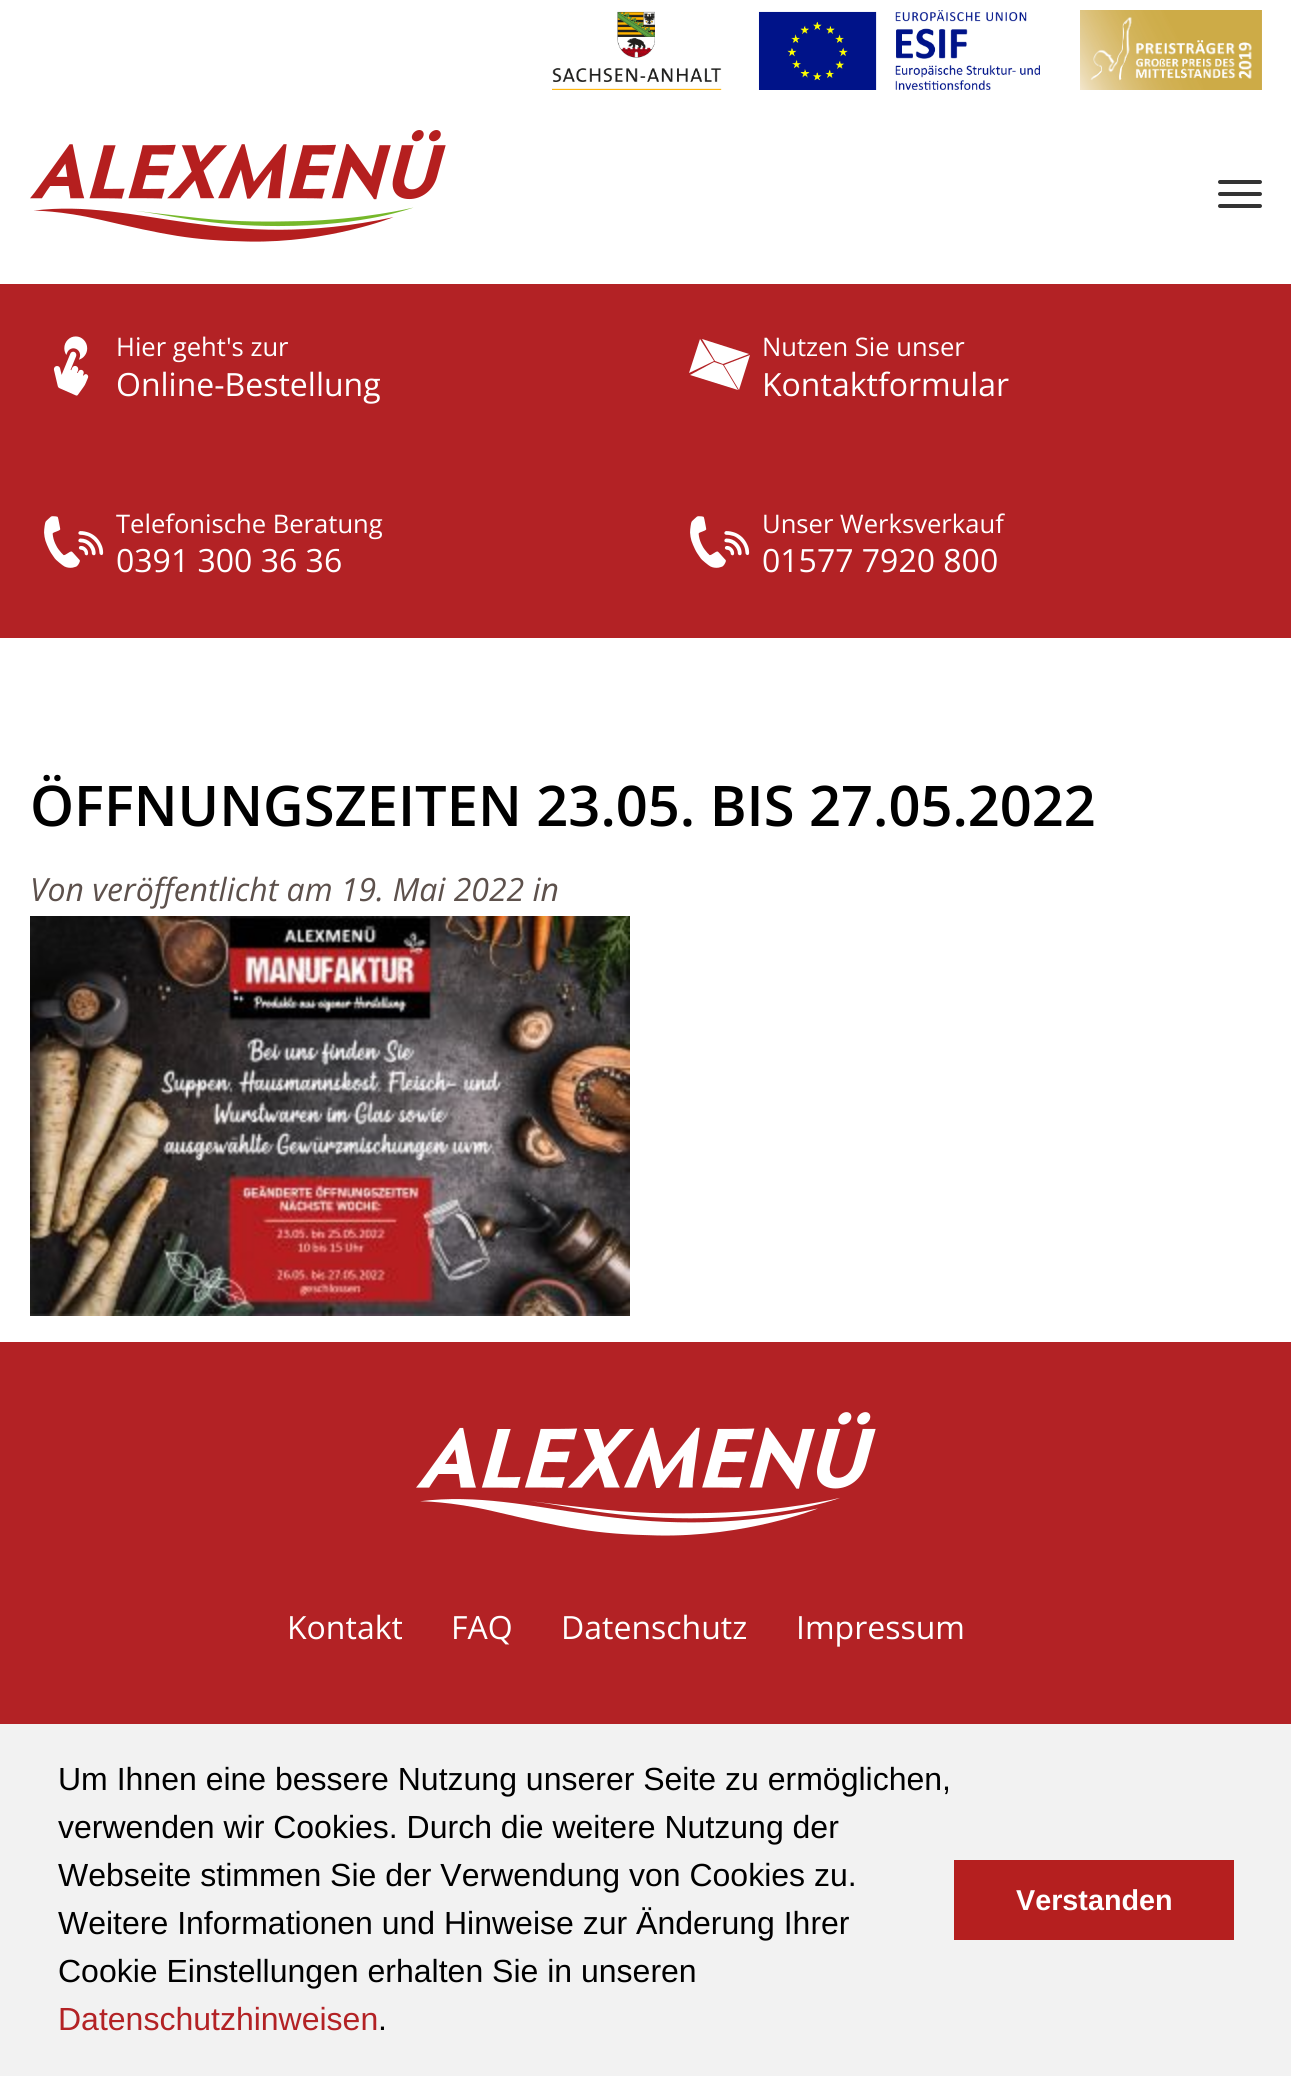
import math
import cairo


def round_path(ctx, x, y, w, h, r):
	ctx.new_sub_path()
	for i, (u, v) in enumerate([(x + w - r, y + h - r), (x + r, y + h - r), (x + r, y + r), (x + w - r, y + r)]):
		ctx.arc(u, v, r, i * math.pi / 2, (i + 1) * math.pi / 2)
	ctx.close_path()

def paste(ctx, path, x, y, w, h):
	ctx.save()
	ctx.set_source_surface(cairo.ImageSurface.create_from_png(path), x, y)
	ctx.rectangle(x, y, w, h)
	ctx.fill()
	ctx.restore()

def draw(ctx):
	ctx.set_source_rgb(1, 1, 1)
	ctx.paint()
	paste(ctx, 'media/1.png', 552, 10, 488, 80)
	paste(ctx, 'media/2.png', 1080, 10, 182, 80)
	paste(ctx, 'media/3.png', 30, 130, 416, 112)
	ctx.set_source_rgb(0.2, 0.2, 0.2)
	round_path(ctx, 1218, 180, 44, 4, 2)
	ctx.fill()
	round_path(ctx, 1218, 192, 44, 4, 2)
	ctx.fill()
	round_path(ctx, 1218, 204, 44, 4, 2)
	ctx.fill()
	ctx.set_source_rgb(0.702, 0.133, 0.145)
	ctx.rectangle(0, 284, 1291, 354)
	ctx.fill()
	paste(ctx, 'media/4.png', 53, 336, 36, 60)
	ctx.select_font_face('Open Sans')
	ctx.set_font_size(25.6)
	ctx.set_source_rgb(1, 1, 1)
	ctx.move_to(116, 356)
	ctx.show_text('Hier geht\'s zur')
	ctx.set_font_size(32)
	ctx.move_to(116, 396)
	ctx.show_text('Online-Bestellung')
	ctx.new_path()
	ctx.move_to(723, 364)
	ctx.line_to(749, 354)
	ctx.line_to(702, 339)
	ctx.line_to(715, 361)
	ctx.close_path()
	ctx.move_to(700, 339)
	ctx.line_to(689, 373)
	ctx.line_to(714, 361)
	ctx.close_path()
	ctx.move_to(724, 365)
	ctx.line_to(739, 390)
	ctx.line_to(750, 355)
	ctx.close_path()
	ctx.move_to(723, 365)
	ctx.line_to(714, 362)
	ctx.line_to(690, 375)
	ctx.line_to(738, 390)
	ctx.close_path()
	ctx.fill()
	ctx.set_font_size(25.6)
	ctx.move_to(762, 356)
	ctx.show_text('Nutzen Sie unser')
	ctx.set_font_size(32)
	ctx.move_to(762, 396)
	ctx.show_text('Kontaktformular')
	paste(ctx, 'media/5.png', 44, 516, 60, 52)
	ctx.set_font_size(25.6)
	ctx.move_to(116, 533)
	ctx.show_text('Telefonische Beratung')
	ctx.set_font_size(32)
	ctx.move_to(116, 572)
	ctx.show_text('0391 300 36 36')
	paste(ctx, 'media/5.png', 690, 516, 60, 52)
	ctx.set_font_size(25.6)
	ctx.move_to(762, 533)
	ctx.show_text('Unser Werksverkauf')
	ctx.set_font_size(32)
	ctx.move_to(762, 572)
	ctx.show_text('01577 7920 800')
	ctx.select_font_face('Open Sans SemiBold')
	ctx.set_font_size(56)
	ctx.set_source_rgb(0, 0, 0)
	ctx.move_to(30, 826)
	ctx.show_text('ÖFFNUNGSZEITEN 23.05. BIS 27.05.2022')
	ctx.select_font_face('Open Sans', cairo.FONT_SLANT_ITALIC)
	ctx.set_font_size(32)
	ctx.set_source_rgb(0.365, 0.318, 0.298)
	ctx.move_to(30, 901)
	ctx.show_text('Von veröffentlicht am 19. Mai 2022 in')
	paste(ctx, 'media/6.png', 30, 916, 600, 400)
	ctx.set_source_rgb(0.702, 0.133, 0.145)
	ctx.rectangle(0, 1342, 1291, 382)
	ctx.fill()
	paste(ctx, 'media/7.png', 416, 1412, 460, 124)
	ctx.select_font_face('Open Sans')
	ctx.set_source_rgb(1, 1, 1)
	for x, y, s in [
		(287, 1639, 'Kontakt'),
		(451, 1639, 'FAQ'),
		(561, 1639, 'Datenschutz'),
		(796, 1639, 'Impressum'),
	]:
		ctx.move_to(x, y)
		ctx.show_text(s)
	ctx.set_source_rgb(0.949, 0.949, 0.949)
	ctx.rectangle(0, 1724, 1291, 352)
	ctx.fill()
	ctx.select_font_face('Liberation Sans')
	ctx.set_source_rgb(0, 0, 0)
	for x, y, s in [
		(58, 1790, 'Um Ihnen eine bessere Nutzung unserer Seite zu ermöglichen,'),
		(58, 1838, 'verwenden wir Cookies. Durch die weitere Nutzung der'),
		(58, 1886, 'Webseite stimmen Sie der Verwendung von Cookies zu.'),
		(58, 1934, 'Weitere Informationen und Hinweise zur Änderung Ihrer'),
		(58, 1982, 'Cookie Einstellungen erhalten Sie in unseren'),
	]:
		ctx.move_to(x, y)
		ctx.show_text(s)
	ctx.set_source_rgb(0.702, 0.133, 0.145)
	ctx.move_to(58, 2030)
	ctx.show_text('Datenschutzhinweisen')
	ctx.set_source_rgb(0, 0, 0)
	ctx.move_to(378, 2030)
	ctx.show_text('.')
	ctx.set_source_rgb(0.71, 0.122, 0.122)
	ctx.rectangle(954, 1860, 280, 80)
	ctx.fill()
	ctx.select_font_face('Liberation Sans', cairo.FONT_SLANT_NORMAL, cairo.FONT_WEIGHT_BOLD)
	ctx.set_font_size(28.75)
	ctx.set_source_rgb(1, 1, 1)
	ctx.move_to(1016, 1910)
	ctx.show_text('Verstanden')


surface = cairo.ImageSurface(cairo.FORMAT_RGB24, 1291, 2076)
ctx = cairo.Context(surface)
options = cairo.FontOptions()
options.set_hint_metrics(cairo.HINT_METRICS_OFF)
options.set_hint_style(cairo.HINT_STYLE_NONE)
ctx.set_font_options(options)
ctx.set_miter_limit(4)
draw(ctx)
surface.write_to_png('image.png')
